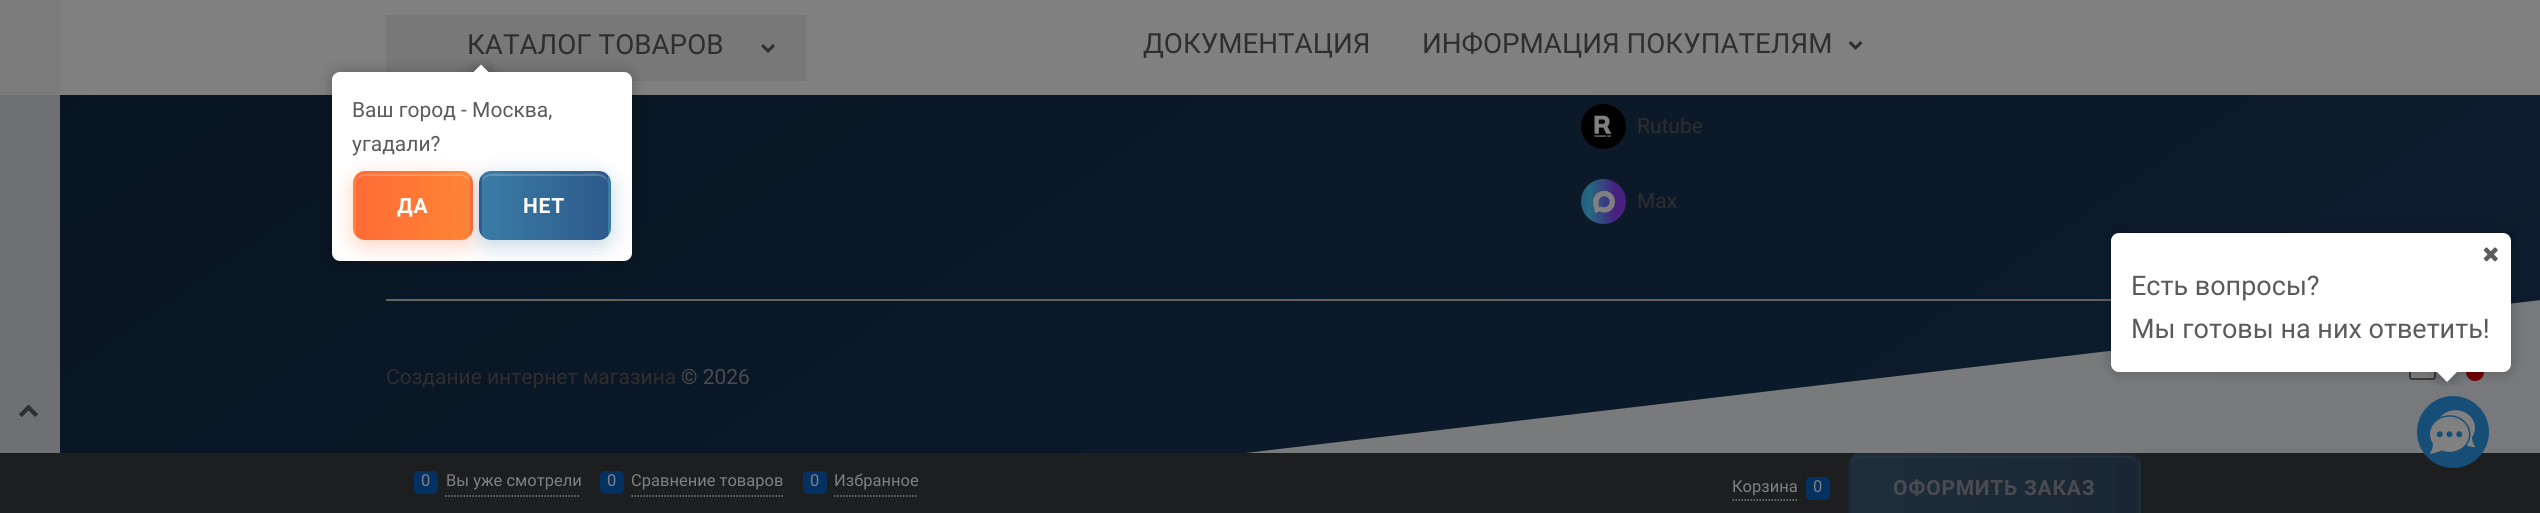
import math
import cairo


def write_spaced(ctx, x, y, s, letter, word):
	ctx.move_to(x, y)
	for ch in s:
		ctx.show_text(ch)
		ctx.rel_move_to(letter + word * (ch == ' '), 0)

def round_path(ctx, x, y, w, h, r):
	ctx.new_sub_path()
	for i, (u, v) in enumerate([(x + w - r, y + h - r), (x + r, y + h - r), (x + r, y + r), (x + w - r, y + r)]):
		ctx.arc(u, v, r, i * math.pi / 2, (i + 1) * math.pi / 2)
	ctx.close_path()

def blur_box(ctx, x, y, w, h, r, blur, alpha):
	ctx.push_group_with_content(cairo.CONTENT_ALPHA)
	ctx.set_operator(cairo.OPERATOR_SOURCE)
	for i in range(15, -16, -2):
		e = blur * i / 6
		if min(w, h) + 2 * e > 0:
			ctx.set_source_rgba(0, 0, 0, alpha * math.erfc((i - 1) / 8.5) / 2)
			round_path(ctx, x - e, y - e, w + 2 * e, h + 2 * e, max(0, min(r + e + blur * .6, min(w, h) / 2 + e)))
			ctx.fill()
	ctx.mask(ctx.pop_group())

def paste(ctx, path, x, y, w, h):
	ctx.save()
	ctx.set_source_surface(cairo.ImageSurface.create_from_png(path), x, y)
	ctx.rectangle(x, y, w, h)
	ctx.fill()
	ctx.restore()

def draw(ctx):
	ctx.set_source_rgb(1, 1, 1)
	ctx.paint()
	gradient = cairo.LinearGradient(96, -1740, 2445, 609)
	gradient.add_color_stop_rgba(0, 0.486, 0.49, 0.494, 1)
	gradient.add_color_stop_rgba(1, 0.467, 0.475, 0.486, 1)
	ctx.set_source(gradient)
	ctx.rectangle(1245, 300, 1295, 153)
	ctx.fill()
	gradient = cairo.LinearGradient(712, -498, 1829, 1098)
	gradient.add_color_stop_rgba(0, 0.031, 0.078, 0.129, 1)
	gradient.add_color_stop_rgba(1, 0.051, 0.114, 0.188, 1)
	ctx.set_source(gradient)
	ctx.new_path()
	ctx.move_to(0, 0)
	ctx.line_to(0, 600)
	ctx.line_to(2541, 300)
	ctx.line_to(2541, 0)
	ctx.close_path()
	ctx.fill()
	ctx.set_source_rgb(0.502, 0.502, 0.502)
	ctx.rectangle(0, 0, 2540, 95)
	ctx.fill()
	ctx.set_source_rgba(0.478, 0.478, 0.478, 0.9)
	ctx.rectangle(0, 0, 60, 453)
	ctx.fill()
	paste(ctx, 'media/1.png', 19, 404, 19, 13)
	ctx.set_source_rgb(0.471, 0.471, 0.471)
	ctx.rectangle(386, 15, 420, 66)
	ctx.fill()
	ctx.select_font_face('Roboto')
	ctx.set_font_size(27.75)
	ctx.set_source_rgb(0.18, 0.18, 0.18)
	ctx.move_to(467, 54)
	ctx.show_text('КАТАЛОГ ТОВАРОВ')
	paste(ctx, 'media/2.png', 761, 44, 14, 9)
	ctx.move_to(1143, 53)
	ctx.show_text('ДОКУМЕНТАЦИЯ')
	ctx.move_to(1422, 53)
	ctx.show_text('ИНФОРМАЦИЯ ПОКУПАТЕЛЯМ')
	paste(ctx, 'media/3.png', 1848, 41, 15, 9)
	ctx.set_source_rgb(0.384, 0.384, 0.384)
	ctx.rectangle(386, 299, 1725, 2)
	ctx.fill()
	ctx.set_source_rgb(0, 0, 0)
	ctx.arc(1603.5, 126.5, 22.5, 0, 2 * math.pi)
	ctx.fill()
	paste(ctx, 'media/4.png', 1594, 115, 18, 22)
	ctx.set_font_size(21)
	ctx.set_source_rgb(0.18, 0.18, 0.18)
	ctx.move_to(1637, 133)
	ctx.show_text('Rutube')
	gradient = cairo.LinearGradient(1574, 201, 1626, 201)
	gradient.add_color_stop_rgba(0, 0.176, 0.275, 0.502, 1)
	gradient.add_color_stop_rgba(0.28, 0.133, 0.42, 0.502, 1)
	gradient.add_color_stop_rgba(0.8, 0.282, 0.125, 0.502, 1)
	ctx.set_source(gradient)
	ctx.new_path()
	ctx.arc(1603.5, 201.5, 22.5, 0, 2 * math.pi)
	ctx.fill()
	paste(ctx, 'media/5.png', 1593, 190, 22, 23)
	ctx.set_source_rgb(0.18, 0.18, 0.18)
	ctx.move_to(1637, 208)
	ctx.show_text('Max')
	ctx.move_to(386, 384)
	ctx.show_text('Создание интернет магазина')
	ctx.set_source_rgb(0.29, 0.294, 0.306)
	ctx.move_to(681, 384)
	ctx.show_text('© 2026')
	ctx.set_source_rgb(0.11, 0.118, 0.125)
	ctx.rectangle(0, 453, 2540, 60)
	ctx.fill()
	ctx.new_path()
	ctx.move_to(445.5, 496)
	ctx.line_to(580.5, 496)
	ctx.set_source_rgb(0.502, 0.502, 0.502)
	ctx.set_line_width(1.5)
	ctx.set_dash([1.5, 1.5])
	ctx.stroke()
	ctx.set_source_rgb(0.012, 0.192, 0.38)
	round_path(ctx, 414, 471, 24, 23, 5)
	ctx.fill()
	ctx.set_font_size(16.5)
	ctx.set_source_rgb(0.502, 0.502, 0.502)
	ctx.move_to(421, 486)
	ctx.show_text('0')
	ctx.move_to(446, 486)
	ctx.show_text('Вы уже смотрели')
	ctx.new_path()
	ctx.move_to(631.5, 496)
	ctx.line_to(784.5, 496)
	ctx.stroke()
	ctx.set_source_rgb(0.012, 0.192, 0.38)
	round_path(ctx, 600, 471, 24, 23, 5)
	ctx.fill()
	ctx.set_source_rgb(0.502, 0.502, 0.502)
	ctx.move_to(607, 486)
	ctx.show_text('0')
	ctx.move_to(631, 486)
	ctx.show_text('Сравнение товаров')
	ctx.new_path()
	ctx.move_to(834, 496)
	ctx.line_to(918, 496)
	ctx.stroke()
	ctx.set_source_rgb(0.012, 0.192, 0.38)
	round_path(ctx, 803, 471, 24, 23, 5)
	ctx.fill()
	ctx.set_source_rgb(0.502, 0.502, 0.502)
	ctx.move_to(810, 486)
	ctx.show_text('0')
	ctx.move_to(834, 486)
	ctx.show_text('Избранное')
	ctx.new_path()
	ctx.move_to(1732.5, 500)
	ctx.line_to(1798.5, 500)
	ctx.stroke()
	ctx.move_to(1732, 492)
	ctx.show_text('Корзина')
	ctx.set_source_rgb(0.012, 0.192, 0.38)
	round_path(ctx, 1806, 477, 24, 23, 5)
	ctx.fill()
	ctx.set_source_rgb(0.502, 0.502, 0.502)
	ctx.move_to(1813, 492)
	ctx.show_text('0')
	ctx.save()
	round_path(ctx, 1848, 453, 293, 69, 12)
	ctx.clip()
	gradient = cairo.LinearGradient(1565, 488, 1851, 488)
	gradient.add_color_stop_rgba(0, 0.114, 0.18, 0.227, 1)
	gradient.add_color_stop_rgba(1, 0.102, 0.149, 0.2, 1)
	ctx.set_source(gradient)
	ctx.rectangle(1848, 453, 3, 60)
	ctx.fill()
	gradient = cairo.LinearGradient(1851, 488, 2138, 488)
	gradient.add_color_stop_rgba(0, 0.114, 0.18, 0.227, 1)
	gradient.add_color_stop_rgba(1, 0.102, 0.149, 0.2, 1)
	ctx.set_source(gradient)
	ctx.rectangle(1851, 453, 287, 60)
	ctx.fill()
	gradient = cairo.LinearGradient(2138, 488, 2424, 488)
	gradient.add_color_stop_rgba(0, 0.114, 0.18, 0.227, 1)
	gradient.add_color_stop_rgba(1, 0.102, 0.149, 0.2, 1)
	ctx.set_source(gradient)
	ctx.rectangle(2138, 453, 3, 60)
	ctx.fill()
	ctx.restore()
	ctx.set_source_rgba(0.306, 0.31, 0.314, 0.2)
	ctx.new_path()
	ctx.move_to(1860, 458)
	ctx.line_to(2128, 458)
	ctx.curve_to(2133, 458, 2138, 462, 2138, 466)
	ctx.curve_to(2138, 461, 2135, 456, 2129, 456)
	ctx.line_to(1858, 456)
	ctx.curve_to(1853, 457, 1851, 461, 1851, 466)
	ctx.curve_to(1851, 462, 1855, 458, 1860, 458)
	ctx.close_path()
	ctx.fill()
	ctx.select_font_face('Roboto', cairo.FONT_SLANT_NORMAL, cairo.FONT_WEIGHT_BOLD)
	ctx.set_font_size(21)
	ctx.set_source_rgb(0.29, 0.294, 0.306)
	write_spaced(ctx, 1893, 495, 'ОФОРМИТЬ ЗАКАЗ', 0.75, 0)
	ctx.set_source_rgb(0, 0, 0)
	blur_box(ctx, 332, 72, 300, 189, 8, 7, 0.25)
	ctx.set_source_rgb(1, 1, 1)
	round_path(ctx, 332, 72, 300, 189, 8)
	ctx.fill()
	ctx.save()
	ctx.rectangle(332, 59, 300, 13)
	ctx.clip()
	ctx.set_source_rgb(0, 0, 0)
	blur_box(ctx, 474, 68, 15, 15, 0, 7, 0.25)
	ctx.restore()
	ctx.save()
	ctx.rectangle(332, 59, 300, 13)
	ctx.clip()
	ctx.new_path()
	ctx.move_to(481, 64.5)
	ctx.line_to(491.5, 75)
	ctx.line_to(481, 85.5)
	ctx.line_to(470.5, 75)
	ctx.close_path()
	ctx.fill()
	ctx.restore()
	ctx.select_font_face('Roboto')
	ctx.set_source_rgb(0.357, 0.357, 0.357)
	ctx.move_to(352, 117)
	ctx.show_text('Ваш город - Москва,')
	ctx.move_to(352, 151)
	ctx.show_text('угадали?')
	ctx.set_source_rgb(1, 0.42, 0.208)
	blur_box(ctx, 353, 177, 120, 69, 12, 11, 0.3)
	ctx.save()
	round_path(ctx, 353, 171, 120, 69, 12)
	ctx.clip()
	gradient = cairo.LinearGradient(242, 206, 356, 206)
	gradient.add_color_stop_rgba(0, 1, 0.42, 0.208, 1)
	gradient.add_color_stop_rgba(1, 1, 0.522, 0.208, 1)
	ctx.set_source(gradient)
	ctx.rectangle(353, 171, 3, 69)
	ctx.fill()
	gradient = cairo.LinearGradient(356, 206, 470, 206)
	gradient.add_color_stop_rgba(0, 1, 0.42, 0.208, 1)
	gradient.add_color_stop_rgba(1, 1, 0.522, 0.208, 1)
	ctx.set_source(gradient)
	ctx.rectangle(356, 171, 114, 69)
	ctx.fill()
	gradient = cairo.LinearGradient(470, 206, 584, 206)
	gradient.add_color_stop_rgba(0, 1, 0.42, 0.208, 1)
	gradient.add_color_stop_rgba(1, 1, 0.522, 0.208, 1)
	ctx.set_source(gradient)
	ctx.rectangle(470, 171, 3, 69)
	ctx.fill()
	ctx.restore()
	ctx.set_source_rgba(1, 1, 1, 0.2)
	ctx.new_path()
	ctx.move_to(364, 176)
	ctx.line_to(460, 176)
	ctx.curve_to(465, 176, 470, 180, 470, 184)
	ctx.curve_to(470, 170, 454, 174, 445, 174)
	ctx.line_to(381, 174)
	ctx.curve_to(372, 174, 356, 170, 356, 184)
	ctx.curve_to(356, 180, 360, 176, 364, 176)
	ctx.close_path()
	ctx.fill()
	ctx.select_font_face('Roboto', cairo.FONT_SLANT_NORMAL, cairo.FONT_WEIGHT_BOLD)
	ctx.set_source_rgb(1, 1, 1)
	write_spaced(ctx, 397, 213, 'ДА', 0.75, 0)
	ctx.set_source_rgb(0.227, 0.486, 0.647)
	blur_box(ctx, 479, 177, 132, 69, 12, 11, 0.3)
	ctx.save()
	round_path(ctx, 479, 171, 132, 69, 12)
	ctx.clip()
	gradient = cairo.LinearGradient(356, 206, 482, 206)
	gradient.add_color_stop_rgba(0, 0.227, 0.486, 0.647, 1)
	gradient.add_color_stop_rgba(1, 0.176, 0.353, 0.549, 1)
	ctx.set_source(gradient)
	ctx.rectangle(479, 171, 3, 69)
	ctx.fill()
	gradient = cairo.LinearGradient(482, 206, 608, 206)
	gradient.add_color_stop_rgba(0, 0.227, 0.486, 0.647, 1)
	gradient.add_color_stop_rgba(1, 0.176, 0.353, 0.549, 1)
	ctx.set_source(gradient)
	ctx.rectangle(482, 171, 126, 69)
	ctx.fill()
	gradient = cairo.LinearGradient(608, 206, 734, 206)
	gradient.add_color_stop_rgba(0, 0.227, 0.486, 0.647, 1)
	gradient.add_color_stop_rgba(1, 0.176, 0.353, 0.549, 1)
	ctx.set_source(gradient)
	ctx.rectangle(608, 171, 3, 69)
	ctx.fill()
	ctx.restore()
	ctx.set_source_rgba(1, 1, 1, 0.2)
	ctx.new_path()
	ctx.move_to(490, 176)
	ctx.line_to(598, 176)
	ctx.curve_to(603, 176, 608, 180, 608, 184)
	ctx.curve_to(608, 170, 590, 174, 581, 174)
	ctx.line_to(509, 174)
	ctx.curve_to(500, 174, 482, 170, 482, 184)
	ctx.curve_to(482, 180, 486, 176, 490, 176)
	ctx.close_path()
	ctx.fill()
	ctx.set_source_rgb(1, 1, 1)
	write_spaced(ctx, 523, 213, 'НЕТ', 0.75, 0)
	ctx.set_source_rgb(0.502, 0.502, 0.502)
	round_path(ctx, 2410, 354, 25, 25, 2)
	ctx.fill_preserve()
	ctx.set_source_rgb(0.231, 0.231, 0.231)
	ctx.set_line_width(2)
	ctx.set_dash([])
	ctx.stroke()
	ctx.set_source_rgb(0.447, 0, 0.004)
	ctx.arc(2475, 372, 9, 0, 2 * math.pi)
	ctx.fill()
	ctx.set_source_rgb(0, 0, 0)
	blur_box(ctx, 2111, 233, 400, 139, 8, 7, 0.25)
	ctx.set_source_rgb(1, 1, 1)
	round_path(ctx, 2111, 233, 400, 139, 8)
	ctx.fill()
	paste(ctx, 'media/6.png', 2483, 247, 15, 15)
	ctx.select_font_face('Roboto')
	ctx.set_font_size(27)
	ctx.set_source_rgb(0.357, 0.357, 0.357)
	ctx.move_to(2131, 295)
	ctx.show_text('Есть вопросы?')
	ctx.move_to(2131, 338)
	ctx.show_text('Мы готовы на них ответить!')
	ctx.set_source_rgb(0.09, 0.306, 0.467)
	ctx.new_path()
	ctx.arc(2453, 432, 36, 0, 2 * math.pi)
	ctx.fill()
	ctx.save()
	ctx.rectangle(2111, 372, 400, 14)
	ctx.clip()
	ctx.set_source_rgb(0, 0, 0)
	blur_box(ctx, 2439, 365, 15, 15, 0, 7, 0.25)
	ctx.restore()
	ctx.save()
	ctx.rectangle(2111, 372, 400, 14)
	ctx.clip()
	ctx.set_source_rgb(1, 1, 1)
	ctx.new_path()
	ctx.move_to(2447, 361)
	ctx.line_to(2457.5, 371.5)
	ctx.line_to(2447, 382)
	ctx.line_to(2436.5, 371.5)
	ctx.close_path()
	ctx.fill()
	ctx.restore()
	paste(ctx, 'media/7.png', 2430, 410, 45, 44)


surface = cairo.ImageSurface(cairo.FORMAT_RGB24, 2540, 513)
ctx = cairo.Context(surface)
options = cairo.FontOptions()
options.set_hint_metrics(cairo.HINT_METRICS_OFF)
options.set_hint_style(cairo.HINT_STYLE_NONE)
ctx.set_font_options(options)
ctx.set_miter_limit(4)
draw(ctx)
surface.write_to_png('image.png')
